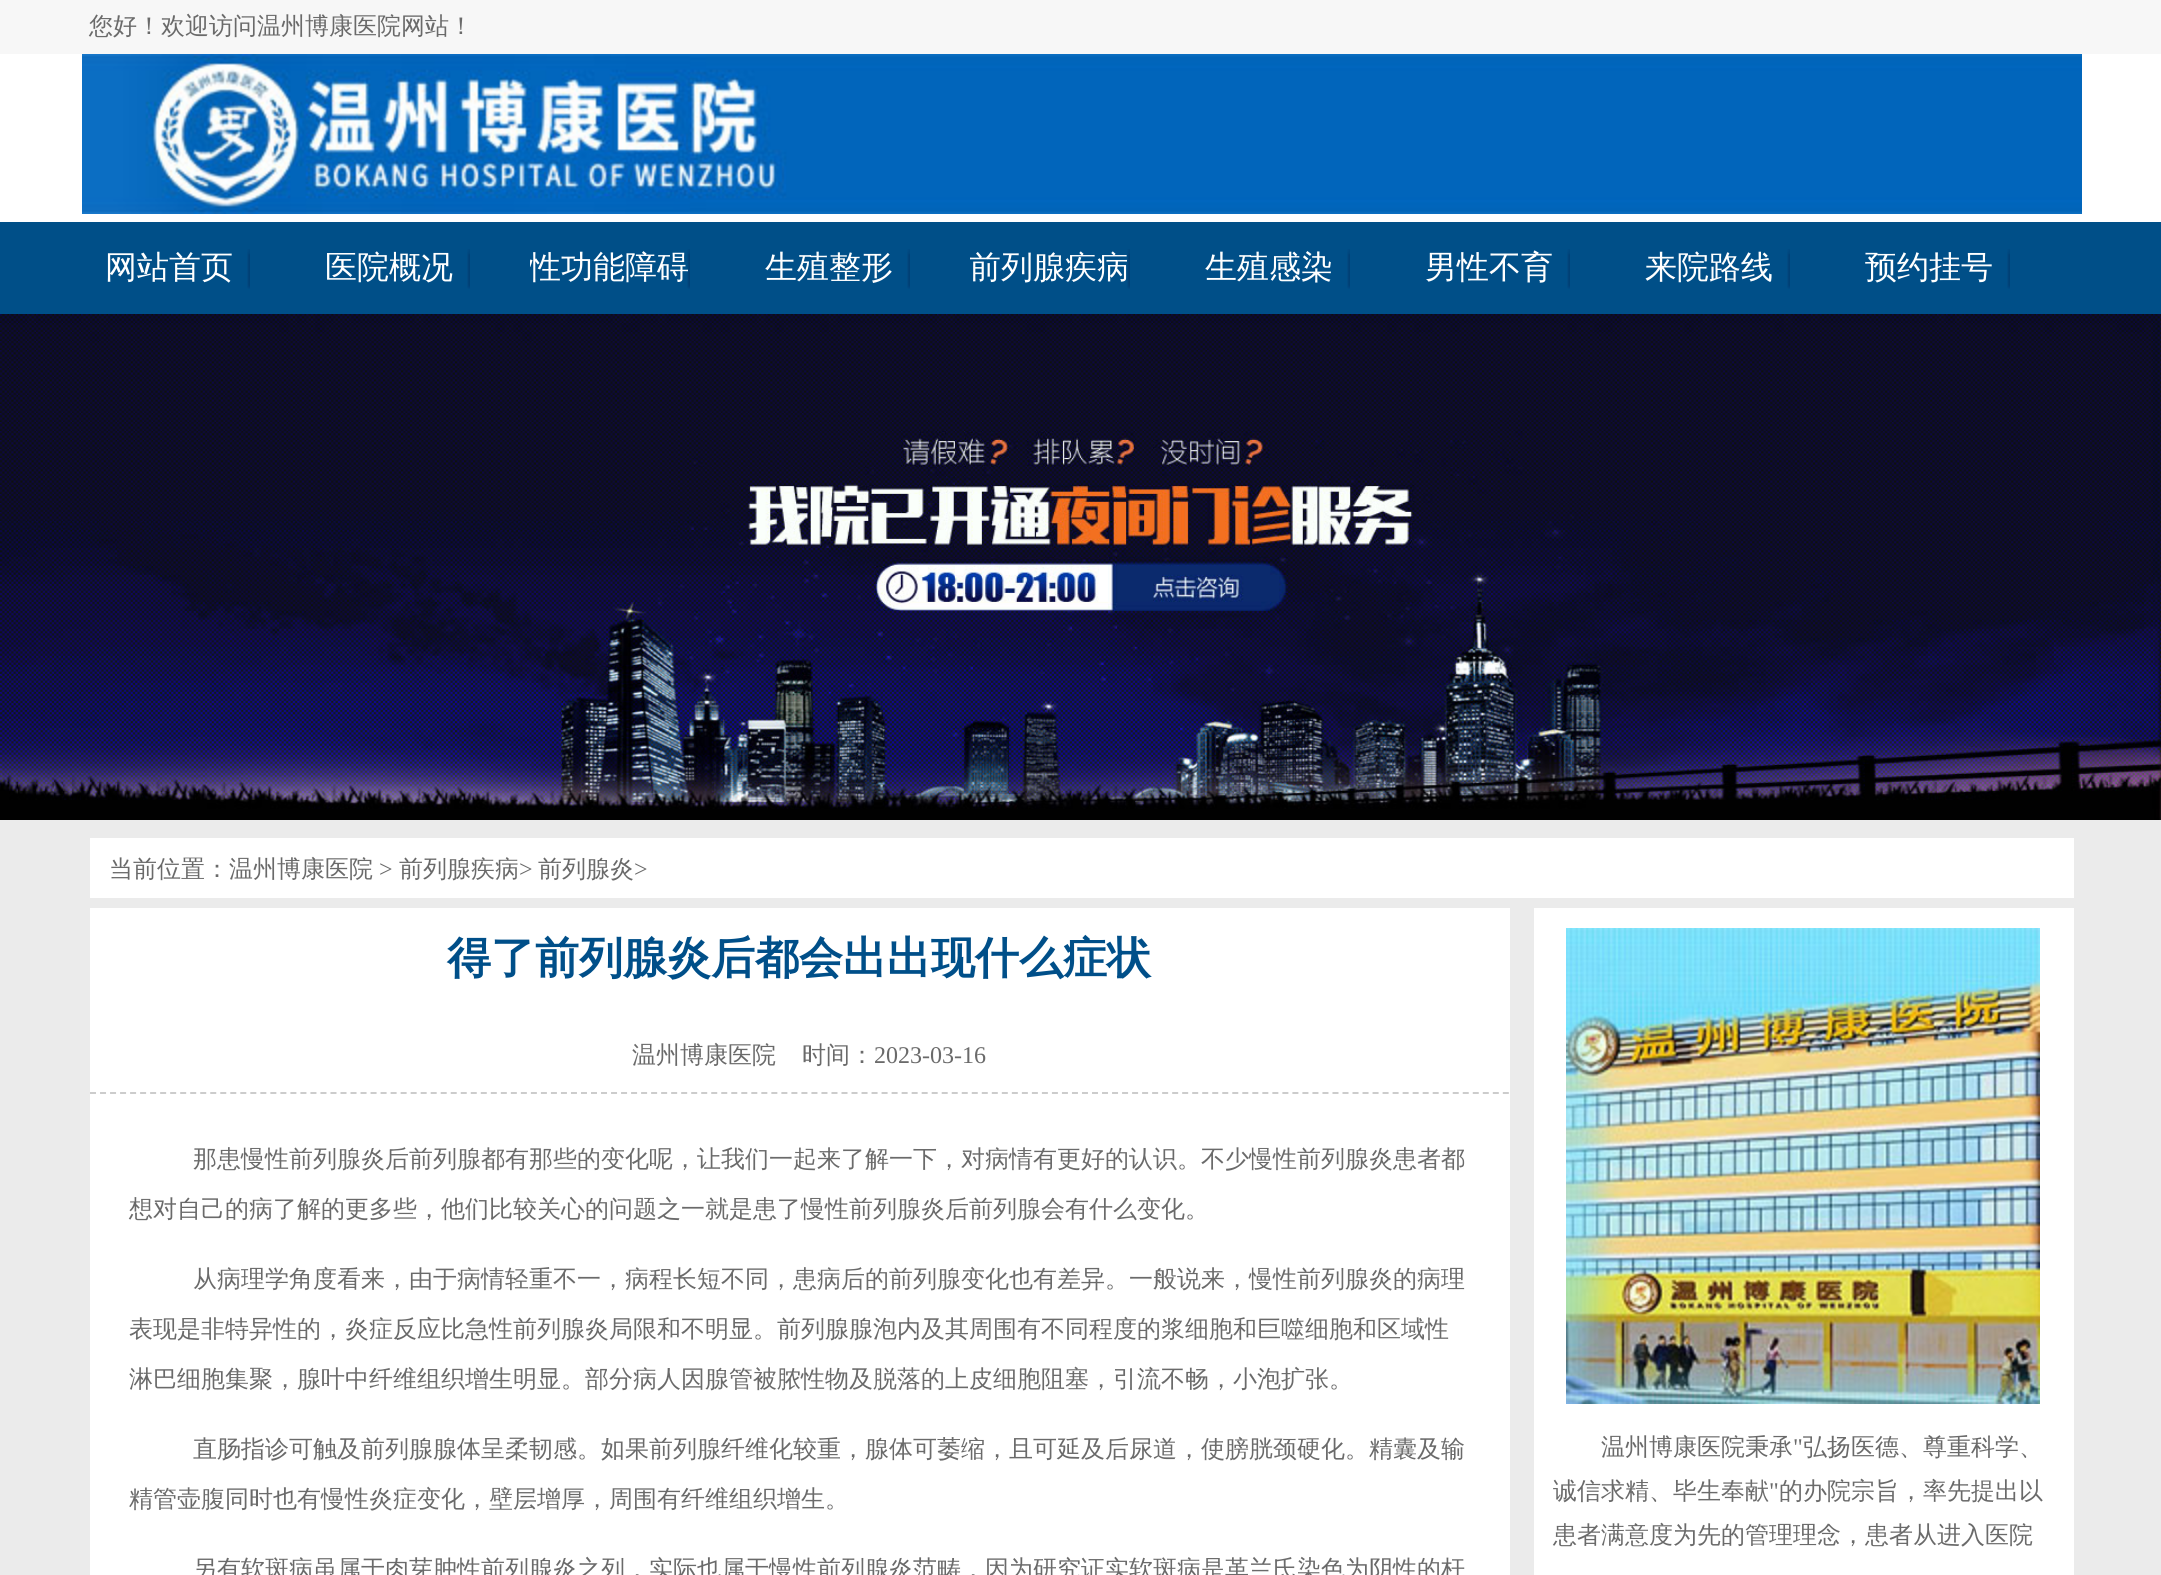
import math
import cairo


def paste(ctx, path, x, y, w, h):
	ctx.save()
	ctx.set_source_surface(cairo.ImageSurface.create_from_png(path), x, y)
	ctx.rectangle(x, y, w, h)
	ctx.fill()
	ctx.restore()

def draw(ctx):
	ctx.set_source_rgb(0.918, 0.918, 0.918)
	ctx.paint()
	ctx.set_source_rgb(0.965, 0.965, 0.965)
	ctx.rectangle(0, 0, 2161, 54)
	ctx.fill()
	ctx.select_font_face('WenQuanYi Zen Hei Medium')
	ctx.set_font_size(24)
	ctx.set_source_rgb(0.416, 0.416, 0.416)
	ctx.move_to(89, 34)
	ctx.show_text('您好！欢迎访问温州博康医院网站！')
	ctx.set_source_rgb(1, 1, 1)
	ctx.rectangle(0, 54, 2161, 168)
	ctx.fill()
	paste(ctx, 'media/1.png', 82, 54, 2000, 160)
	ctx.set_source_rgb(0, 0.31, 0.533)
	ctx.rectangle(0, 222, 2161, 92)
	ctx.fill()
	paste(ctx, 'media/2.png', 247, 249, 3, 40)
	ctx.set_font_size(32)
	ctx.set_source_rgb(1, 1, 1)
	ctx.move_to(105, 278)
	ctx.show_text('网站首页')
	paste(ctx, 'media/2.png', 467, 249, 3, 40)
	ctx.move_to(325, 278)
	ctx.show_text('医院概况')
	paste(ctx, 'media/2.png', 687, 249, 3, 40)
	ctx.save()
	ctx.rectangle(530, 222, 220, 92)
	ctx.clip()
	ctx.move_to(529, 278)
	ctx.show_text('性功能障碍')
	ctx.restore()
	paste(ctx, 'media/2.png', 907, 249, 3, 40)
	ctx.move_to(765, 278)
	ctx.show_text('生殖整形')
	paste(ctx, 'media/2.png', 1127, 249, 3, 40)
	ctx.save()
	ctx.rectangle(970, 222, 220, 92)
	ctx.clip()
	ctx.move_to(969, 278)
	ctx.show_text('前列腺疾病')
	ctx.restore()
	paste(ctx, 'media/2.png', 1347, 249, 3, 40)
	ctx.move_to(1205, 278)
	ctx.show_text('生殖感染')
	paste(ctx, 'media/2.png', 1567, 249, 3, 40)
	ctx.move_to(1425, 278)
	ctx.show_text('男性不育')
	paste(ctx, 'media/2.png', 1787, 249, 3, 40)
	ctx.move_to(1645, 278)
	ctx.show_text('来院路线')
	paste(ctx, 'media/2.png', 2007, 249, 3, 40)
	ctx.move_to(1865, 278)
	ctx.show_text('预约挂号')
	paste(ctx, 'media/3.png', 0, 314, 2161, 506)
	ctx.rectangle(90, 838, 1984, 60)
	ctx.fill()
	ctx.set_font_size(24)
	ctx.set_source_rgb(0.416, 0.416, 0.416)
	ctx.move_to(109, 877)
	ctx.show_text('当前位置：温州博康医院')
	ctx.select_font_face('Liberation Serif')
	ctx.move_to(379, 877)
	ctx.show_text('>')
	ctx.select_font_face('WenQuanYi Zen Hei Medium')
	ctx.move_to(399, 877)
	ctx.show_text('前列腺疾病')
	ctx.select_font_face('Liberation Serif')
	ctx.move_to(519, 877)
	ctx.show_text('>')
	ctx.select_font_face('WenQuanYi Zen Hei Medium')
	ctx.move_to(538, 877)
	ctx.show_text('前列腺炎')
	ctx.select_font_face('Liberation Serif')
	ctx.move_to(634, 877)
	ctx.show_text('>')
	ctx.set_source_rgb(1, 1, 1)
	ctx.rectangle(90, 908, 1420, 667)
	ctx.fill()
	ctx.select_font_face('WenQuanYi Zen Hei', cairo.FONT_SLANT_NORMAL, cairo.FONT_WEIGHT_BOLD)
	ctx.set_font_size(44)
	ctx.set_source_rgb(0, 0.31, 0.537)
	ctx.move_to(447, 973)
	ctx.show_text('得了前列腺炎后都会出出现什么症状')
	ctx.new_path()
	ctx.move_to(90, 1093)
	ctx.line_to(1510, 1093)
	ctx.set_source_rgb(0.8, 0.8, 0.8)
	ctx.set_dash([6, 4.02])
	ctx.stroke()
	ctx.select_font_face('WenQuanYi Zen Hei Medium')
	ctx.set_font_size(24)
	ctx.set_source_rgb(0.416, 0.416, 0.416)
	ctx.move_to(632, 1063)
	ctx.show_text('温州博康医院')
	ctx.move_to(802, 1063)
	ctx.show_text('时间：')
	ctx.select_font_face('Liberation Serif')
	ctx.move_to(874, 1063)
	ctx.show_text('2023-03-16')
	ctx.select_font_face('WenQuanYi Zen Hei Medium')
	for x, y, s in [
		(193, 1167, '那患慢性前列腺炎后前列腺都有那些的变化呢，让我们一起来了解一下，对病情有更好的认识。不少慢性前列腺炎患者都'),
		(129, 1217, '想对自己的病了解的更多些，他们比较关心的问题之一就是患了慢性前列腺炎后前列腺会有什么变化。'),
		(193, 1287, '从病理学角度看来，由于病情轻重不一，病程长短不同，患病后的前列腺变化也有差异。一般说来，慢性前列腺炎的病理'),
		(129, 1337, '表现是非特异性的，炎症反应比急性前列腺炎局限和不明显。前列腺腺泡内及其周围有不同程度的浆细胞和巨噬细胞和区域性'),
		(129, 1387, '淋巴细胞集聚，腺叶中纤维组织增生明显。部分病人因腺管被脓性物及脱落的上皮细胞阻塞，引流不畅，小泡扩张。'),
		(193, 1457, '直肠指诊可触及前列腺腺体呈柔韧感。如果前列腺纤维化较重，腺体可萎缩，且可延及后尿道，使膀胱颈硬化。精囊及输'),
		(129, 1507, '精管壶腹同时也有慢性炎症变化，壁层增厚，周围有纤维组织增生。'),
		(193, 1577, '另有软斑病虽属于肉芽肿性前列腺炎之列，实际也属于慢性前列腺炎范畴，因为研究证实软斑病是革兰氏染色为阴性的杆'),
	]:
		ctx.move_to(x, y)
		ctx.show_text(s)
	ctx.set_source_rgb(1, 1, 1)
	ctx.rectangle(1534, 908, 540, 667)
	ctx.fill()
	paste(ctx, 'media/4.png', 1566, 928, 474, 476)
	ctx.set_source_rgb(0.416, 0.416, 0.416)
	ctx.move_to(1601, 1455)
	ctx.show_text('温州博康医院秉承')
	ctx.select_font_face('Liberation Serif')
	ctx.move_to(1793, 1455)
	ctx.show_text('"')
	ctx.select_font_face('WenQuanYi Zen Hei Medium')
	ctx.move_to(1803, 1455)
	ctx.show_text('弘扬医德、尊重科学、')
	ctx.move_to(1553, 1499)
	ctx.show_text('诚信求精、毕生奉献')
	ctx.select_font_face('Liberation Serif')
	ctx.move_to(1769, 1499)
	ctx.show_text('"')
	ctx.select_font_face('WenQuanYi Zen Hei Medium')
	ctx.move_to(1779, 1499)
	ctx.show_text('的办院宗旨，率先提出以')
	ctx.move_to(1553, 1543)
	ctx.show_text('患者满意度为先的管理理念，患者从进入医院')


surface = cairo.ImageSurface(cairo.FORMAT_RGB24, 2161, 1575)
ctx = cairo.Context(surface)
options = cairo.FontOptions()
options.set_hint_metrics(cairo.HINT_METRICS_OFF)
options.set_hint_style(cairo.HINT_STYLE_NONE)
ctx.set_font_options(options)
ctx.set_miter_limit(4)
draw(ctx)
surface.write_to_png('image.png')
